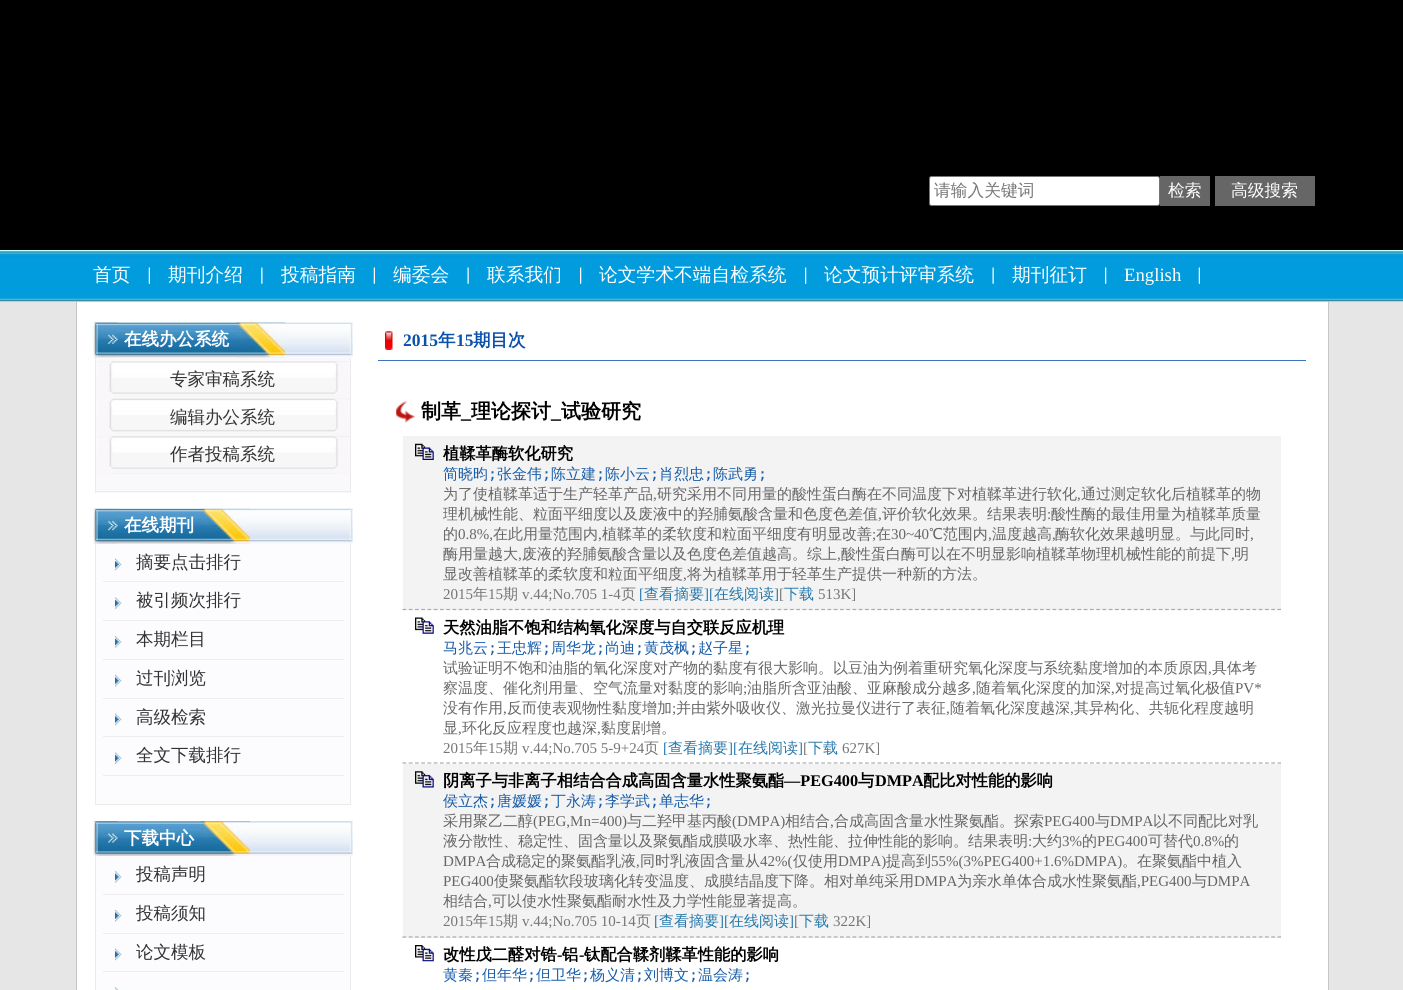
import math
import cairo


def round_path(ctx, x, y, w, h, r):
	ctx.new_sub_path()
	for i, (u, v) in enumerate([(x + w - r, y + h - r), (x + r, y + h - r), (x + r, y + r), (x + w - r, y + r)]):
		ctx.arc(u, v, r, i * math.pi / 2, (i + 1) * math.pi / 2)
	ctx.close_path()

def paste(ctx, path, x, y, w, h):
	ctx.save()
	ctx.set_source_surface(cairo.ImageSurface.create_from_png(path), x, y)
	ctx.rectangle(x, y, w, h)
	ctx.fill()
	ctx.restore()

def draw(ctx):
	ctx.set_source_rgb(0.902, 0.902, 0.902)
	ctx.paint()
	ctx.set_source_rgb(0, 0, 0)
	ctx.rectangle(0, 0, 1403, 250)
	ctx.fill()
	paste(ctx, 'media/34.png', 0, 250, 1403, 52)
	ctx.set_source_rgb(0.694, 0.788, 0.82)
	ctx.rectangle(75, 301, 1255, 1)
	ctx.fill()
	ctx.set_source_rgb(1, 1, 1)
	ctx.rectangle(76.5, 301.5, 1252, 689)
	ctx.fill_preserve()
	ctx.set_source_rgb(0.773, 0.773, 0.773)
	ctx.set_line_width(1)
	ctx.stroke()
	ctx.set_source_rgb(1, 1, 1)
	round_path(ctx, 929.5, 176.5, 230, 29, 2)
	ctx.fill_preserve()
	ctx.set_source_rgb(0.463, 0.463, 0.463)
	ctx.stroke()
	ctx.select_font_face('WenQuanYi Zen Hei Medium')
	ctx.set_font_size(16.75)
	ctx.move_to(934, 196)
	ctx.show_text('请输入关键词')
	ctx.set_source_rgb(0.4, 0.4, 0.4)
	ctx.rectangle(1160, 176, 50, 30)
	ctx.fill()
	ctx.set_source_rgb(1, 1, 1)
	ctx.move_to(1168, 196)
	ctx.show_text('检索')
	ctx.set_source_rgb(0.4, 0.4, 0.4)
	ctx.rectangle(1215, 176, 100, 30)
	ctx.fill()
	ctx.set_source_rgb(1, 1, 1)
	ctx.move_to(1231, 196)
	ctx.show_text('高级搜索')
	paste(ctx, 'media/1.png', 93, 322, 260, 36)
	paste(ctx, 'media/2.png', 93, 322, 192, 36)
	paste(ctx, 'media/3.png', 94, 322, 24, 36)
	ctx.select_font_face('WenQuanYi Zen Hei', cairo.FONT_SLANT_NORMAL, cairo.FONT_WEIGHT_BOLD)
	ctx.set_font_size(17.5)
	ctx.move_to(124, 345)
	ctx.show_text('在线办公系统')
	paste(ctx, 'media/4.png', 236, 322, 49, 36)
	paste(ctx, 'media/5.png', 349, 322, 4, 33)
	ctx.set_source_rgb(0.976, 0.969, 0.98)
	ctx.rectangle(96, 358, 254, 135)
	ctx.fill()
	ctx.set_source_rgb(0.918, 0.918, 0.918)
	ctx.rectangle(350, 358, 1, 135)
	ctx.rectangle(95, 491, 256, 1)
	ctx.rectangle(95, 358, 1, 135)
	ctx.fill()
	paste(ctx, 'media/6.png', 97, 361, 252, 113)
	paste(ctx, 'media/7.png', 97, 361, 17, 38)
	paste(ctx, 'media/8.png', 334, 361, 15, 38)
	ctx.select_font_face('WenQuanYi Zen Hei Medium')
	ctx.set_source_rgb(0.196, 0.196, 0.196)
	ctx.move_to(170, 385)
	ctx.show_text('专家审稿系统')
	paste(ctx, 'media/9.png', 97, 398, 17, 39)
	paste(ctx, 'media/10.png', 335, 399, 14, 33)
	ctx.move_to(170, 423)
	ctx.show_text('编辑办公系统')
	paste(ctx, 'media/11.png', 97, 436, 17, 38)
	paste(ctx, 'media/12.png', 334, 436, 15, 38)
	ctx.move_to(170, 460)
	ctx.show_text('作者投稿系统')
	paste(ctx, 'media/13.png', 93, 508, 260, 36)
	paste(ctx, 'media/14.png', 93, 508, 157, 36)
	paste(ctx, 'media/15.png', 94, 508, 24, 36)
	ctx.select_font_face('WenQuanYi Zen Hei', cairo.FONT_SLANT_NORMAL, cairo.FONT_WEIGHT_BOLD)
	ctx.set_source_rgb(1, 1, 1)
	ctx.move_to(124, 531)
	ctx.show_text('在线期刊')
	paste(ctx, 'media/16.png', 201, 508, 49, 36)
	paste(ctx, 'media/17.png', 349, 509, 4, 33)
	ctx.set_source_rgb(0.988, 0.984, 0.992)
	ctx.rectangle(96, 544, 254, 260)
	ctx.fill()
	ctx.set_source_rgb(0.918, 0.918, 0.918)
	ctx.rectangle(350, 544, 1, 261)
	ctx.rectangle(95, 804, 256, 1)
	ctx.rectangle(95, 544, 1, 261)
	ctx.fill()
	ctx.set_source_rgb(0.929, 0.929, 0.937)
	ctx.rectangle(103, 581, 241, 1)
	ctx.fill()
	paste(ctx, 'media/18.png', 115, 558, 7, 13)
	ctx.select_font_face('WenQuanYi Zen Hei Medium')
	ctx.set_source_rgb(0.196, 0.196, 0.196)
	ctx.move_to(136, 568)
	ctx.show_text('摘要点击排行')
	ctx.set_source_rgb(0.929, 0.929, 0.937)
	ctx.rectangle(103, 620, 241, 1)
	ctx.fill()
	paste(ctx, 'media/19.png', 115, 597, 7, 12)
	ctx.set_source_rgb(0.196, 0.196, 0.196)
	ctx.move_to(136, 606)
	ctx.show_text('被引频次排行')
	ctx.set_source_rgb(0.929, 0.929, 0.937)
	ctx.rectangle(103, 659, 241, 1)
	ctx.fill()
	paste(ctx, 'media/20.png', 115, 636, 7, 12)
	ctx.set_source_rgb(0.196, 0.196, 0.196)
	ctx.move_to(136, 645)
	ctx.show_text('本期栏目')
	ctx.set_source_rgb(0.929, 0.929, 0.937)
	ctx.rectangle(103, 698, 241, 1)
	ctx.fill()
	paste(ctx, 'media/21.png', 115, 675, 7, 12)
	ctx.set_source_rgb(0.196, 0.196, 0.196)
	ctx.move_to(136, 684)
	ctx.show_text('过刊浏览')
	ctx.set_source_rgb(0.929, 0.929, 0.937)
	ctx.rectangle(103, 736, 241, 1)
	ctx.fill()
	paste(ctx, 'media/18.png', 115, 713, 7, 13)
	ctx.set_source_rgb(0.196, 0.196, 0.196)
	ctx.move_to(136, 723)
	ctx.show_text('高级检索')
	ctx.set_source_rgb(0.929, 0.929, 0.937)
	ctx.rectangle(103, 775, 241, 1)
	ctx.fill()
	paste(ctx, 'media/19.png', 115, 752, 7, 12)
	ctx.set_source_rgb(0.196, 0.196, 0.196)
	ctx.move_to(136, 761)
	ctx.show_text('全文下载排行')
	ctx.set_source_rgb(0.988, 0.984, 0.992)
	ctx.rectangle(96, 856, 254, 134)
	ctx.fill()
	ctx.set_source_rgb(0.918, 0.918, 0.918)
	ctx.rectangle(350, 856, 1, 134)
	ctx.rectangle(95, 856, 1, 134)
	ctx.fill()
	paste(ctx, 'media/22.png', 93, 821, 260, 36)
	paste(ctx, 'media/23.png', 93, 821, 157, 35)
	paste(ctx, 'media/24.png', 94, 821, 24, 35)
	ctx.select_font_face('WenQuanYi Zen Hei', cairo.FONT_SLANT_NORMAL, cairo.FONT_WEIGHT_BOLD)
	ctx.set_source_rgb(1, 1, 1)
	ctx.move_to(124, 844)
	ctx.show_text('下载中心')
	paste(ctx, 'media/25.png', 201, 821, 49, 35)
	paste(ctx, 'media/26.png', 349, 821, 4, 33)
	ctx.set_source_rgb(0.929, 0.929, 0.937)
	ctx.rectangle(103, 894, 241, 1)
	ctx.fill()
	paste(ctx, 'media/20.png', 115, 871, 7, 12)
	ctx.select_font_face('WenQuanYi Zen Hei Medium')
	ctx.set_source_rgb(0.196, 0.196, 0.196)
	ctx.move_to(136, 880)
	ctx.show_text('投稿声明')
	ctx.set_source_rgb(0.929, 0.929, 0.937)
	ctx.rectangle(103, 933, 241, 1)
	ctx.fill()
	paste(ctx, 'media/21.png', 115, 910, 7, 12)
	ctx.set_source_rgb(0.196, 0.196, 0.196)
	ctx.move_to(136, 919)
	ctx.show_text('投稿须知')
	ctx.set_source_rgb(0.929, 0.929, 0.937)
	ctx.rectangle(103, 971, 241, 1)
	ctx.fill()
	paste(ctx, 'media/18.png', 115, 948, 7, 13)
	ctx.set_source_rgb(0.196, 0.196, 0.196)
	ctx.move_to(136, 958)
	ctx.show_text('论文模板')
	paste(ctx, 'media/27.png', 115, 987, 4, 3)
	ctx.set_source_rgb(0.243, 0.455, 0.729)
	ctx.rectangle(378, 360, 928, 1)
	ctx.fill()
	paste(ctx, 'media/28.png', 385, 331, 8, 19)
	ctx.select_font_face('Liberation Serif', cairo.FONT_SLANT_NORMAL, cairo.FONT_WEIGHT_BOLD)
	ctx.set_source_rgb(0.039, 0.318, 0.671)
	ctx.move_to(403, 346)
	ctx.show_text('2015')
	ctx.select_font_face('WenQuanYi Zen Hei', cairo.FONT_SLANT_NORMAL, cairo.FONT_WEIGHT_BOLD)
	ctx.move_to(438, 346)
	ctx.show_text('年')
	ctx.select_font_face('Liberation Serif', cairo.FONT_SLANT_NORMAL, cairo.FONT_WEIGHT_BOLD)
	ctx.move_to(456, 346)
	ctx.show_text('15')
	ctx.select_font_face('WenQuanYi Zen Hei', cairo.FONT_SLANT_NORMAL, cairo.FONT_WEIGHT_BOLD)
	ctx.move_to(473, 346)
	ctx.show_text('期目次')
	paste(ctx, 'media/29.png', 396, 401, 19, 22)
	ctx.set_font_size(20)
	ctx.set_source_rgb(0, 0, 0)
	ctx.move_to(421, 418)
	ctx.show_text('制革')
	ctx.select_font_face('Liberation Serif', cairo.FONT_SLANT_NORMAL, cairo.FONT_WEIGHT_BOLD)
	ctx.move_to(461, 418)
	ctx.show_text('_')
	ctx.select_font_face('WenQuanYi Zen Hei', cairo.FONT_SLANT_NORMAL, cairo.FONT_WEIGHT_BOLD)
	ctx.move_to(471, 418)
	ctx.show_text('理论探讨')
	ctx.select_font_face('Liberation Serif', cairo.FONT_SLANT_NORMAL, cairo.FONT_WEIGHT_BOLD)
	ctx.move_to(551, 418)
	ctx.show_text('_')
	ctx.select_font_face('WenQuanYi Zen Hei', cairo.FONT_SLANT_NORMAL, cairo.FONT_WEIGHT_BOLD)
	ctx.move_to(561, 418)
	ctx.show_text('试验研究')
	ctx.set_source_rgb(0.953, 0.953, 0.953)
	ctx.rectangle(403, 436, 878, 174)
	ctx.fill()
	paste(ctx, 'media/30.png', 415, 443, 19, 17)
	ctx.new_path()
	ctx.move_to(402.5, 609.5)
	ctx.line_to(1281, 609.5)
	ctx.set_source_rgb(0.667, 0.667, 0.667)
	ctx.set_line_width(1.2)
	ctx.set_dash([3.75, 2.5])
	ctx.stroke()
	ctx.set_font_size(16.25)
	ctx.set_source_rgb(0, 0, 0)
	ctx.move_to(443, 459)
	ctx.show_text('植鞣革酶软化研究')
	ctx.select_font_face('WenQuanYi Zen Hei Medium')
	ctx.set_font_size(15)
	ctx.set_source_rgb(0.09, 0.361, 0.659)
	ctx.move_to(443, 479)
	ctx.show_text('简晓昀')
	ctx.select_font_face('DejaVu Sans Mono')
	ctx.move_to(488, 479)
	ctx.show_text(';')
	ctx.select_font_face('WenQuanYi Zen Hei Medium')
	ctx.move_to(497, 479)
	ctx.show_text('张金伟')
	ctx.select_font_face('DejaVu Sans Mono')
	ctx.move_to(542, 479)
	ctx.show_text(';')
	ctx.select_font_face('WenQuanYi Zen Hei Medium')
	ctx.move_to(551, 479)
	ctx.show_text('陈立建')
	ctx.select_font_face('DejaVu Sans Mono')
	ctx.move_to(596, 479)
	ctx.show_text(';')
	ctx.select_font_face('WenQuanYi Zen Hei Medium')
	ctx.move_to(605, 479)
	ctx.show_text('陈小云')
	ctx.select_font_face('DejaVu Sans Mono')
	ctx.move_to(650, 479)
	ctx.show_text(';')
	ctx.select_font_face('WenQuanYi Zen Hei Medium')
	ctx.move_to(659, 479)
	ctx.show_text('肖烈忠')
	ctx.select_font_face('DejaVu Sans Mono')
	ctx.move_to(704, 479)
	ctx.show_text(';')
	ctx.select_font_face('WenQuanYi Zen Hei Medium')
	ctx.move_to(713, 479)
	ctx.show_text('陈武勇')
	ctx.select_font_face('DejaVu Sans Mono')
	ctx.move_to(758, 479)
	ctx.show_text(';')
	ctx.select_font_face('WenQuanYi Zen Hei Medium')
	ctx.set_source_rgb(0.4, 0.4, 0.4)
	ctx.move_to(443, 499)
	ctx.show_text('为了使植鞣革适于生产轻革产品')
	ctx.select_font_face('Liberation Serif')
	ctx.move_to(653, 499)
	ctx.show_text(',')
	ctx.select_font_face('WenQuanYi Zen Hei Medium')
	ctx.move_to(657, 499)
	ctx.show_text('研究采用不同用量的酸性蛋白酶在不同温度下对植鞣革进行软化')
	ctx.select_font_face('Liberation Serif')
	ctx.move_to(1077, 499)
	ctx.show_text(',')
	ctx.select_font_face('WenQuanYi Zen Hei Medium')
	ctx.move_to(1081, 499)
	ctx.show_text('通过测定软化后植鞣革的物')
	ctx.move_to(443, 519)
	ctx.show_text('理机械性能、粒面平细度以及废液中的羟脯氨酸含量和色度色差值')
	ctx.select_font_face('Liberation Serif')
	ctx.move_to(878, 519)
	ctx.show_text(',')
	ctx.select_font_face('WenQuanYi Zen Hei Medium')
	ctx.move_to(882, 519)
	ctx.show_text('评价软化效果。结果表明')
	ctx.select_font_face('Liberation Serif')
	ctx.move_to(1047, 519)
	ctx.show_text(':')
	ctx.select_font_face('WenQuanYi Zen Hei Medium')
	ctx.move_to(1051, 519)
	ctx.show_text('酸性酶的最佳用量为植鞣革质量')
	ctx.move_to(443, 539)
	ctx.show_text('的')
	ctx.select_font_face('Liberation Serif')
	ctx.move_to(458, 539)
	ctx.show_text('0.8%,')
	ctx.select_font_face('WenQuanYi Zen Hei Medium')
	ctx.move_to(493, 539)
	ctx.show_text('在此用量范围内')
	ctx.select_font_face('Liberation Serif')
	ctx.move_to(598, 539)
	ctx.show_text(',')
	ctx.select_font_face('WenQuanYi Zen Hei Medium')
	ctx.move_to(602, 539)
	ctx.show_text('植鞣革的柔软度和粒面平细度有明显改善')
	ctx.select_font_face('Liberation Serif')
	ctx.move_to(872, 539)
	ctx.show_text(';')
	ctx.select_font_face('WenQuanYi Zen Hei Medium')
	ctx.move_to(876, 539)
	ctx.show_text('在')
	ctx.select_font_face('Liberation Serif')
	ctx.move_to(891, 539)
	ctx.show_text('30~40')
	ctx.select_font_face('WenQuanYi Zen Hei Medium')
	ctx.move_to(929, 539)
	ctx.show_text('℃范围内')
	ctx.select_font_face('Liberation Serif')
	ctx.move_to(988, 539)
	ctx.show_text(',')
	ctx.select_font_face('WenQuanYi Zen Hei Medium')
	ctx.move_to(992, 539)
	ctx.show_text('温度越高')
	ctx.select_font_face('Liberation Serif')
	ctx.move_to(1052, 539)
	ctx.show_text(',')
	ctx.select_font_face('WenQuanYi Zen Hei Medium')
	ctx.move_to(1055, 539)
	ctx.show_text('酶软化效果越明显。与此同时')
	ctx.select_font_face('Liberation Serif')
	ctx.move_to(1250, 539)
	ctx.show_text(',')
	ctx.select_font_face('WenQuanYi Zen Hei Medium')
	ctx.move_to(443, 559)
	ctx.show_text('酶用量越大')
	ctx.select_font_face('Liberation Serif')
	ctx.move_to(518, 559)
	ctx.show_text(',')
	ctx.select_font_face('WenQuanYi Zen Hei Medium')
	ctx.move_to(522, 559)
	ctx.show_text('废液的羟脯氨酸含量以及色度色差值越高。综上')
	ctx.select_font_face('Liberation Serif')
	ctx.move_to(837, 559)
	ctx.show_text(',')
	ctx.select_font_face('WenQuanYi Zen Hei Medium')
	ctx.move_to(841, 559)
	ctx.show_text('酸性蛋白酶可以在不明显影响植鞣革物理机械性能的前提下')
	ctx.select_font_face('Liberation Serif')
	ctx.move_to(1231, 559)
	ctx.show_text(',')
	ctx.select_font_face('WenQuanYi Zen Hei Medium')
	ctx.move_to(1234, 559)
	ctx.show_text('明')
	ctx.move_to(443, 579)
	ctx.show_text('显改善植鞣革的柔软度和粒面平细度')
	ctx.select_font_face('Liberation Serif')
	ctx.move_to(683, 579)
	ctx.show_text(',')
	ctx.select_font_face('WenQuanYi Zen Hei Medium')
	ctx.move_to(687, 579)
	ctx.show_text('将为植鞣革用于轻革生产提供一种新的方法。')
	ctx.select_font_face('Liberation Serif')
	ctx.set_source_rgb(0.463, 0.463, 0.463)
	ctx.move_to(443, 599)
	ctx.show_text('2015')
	ctx.select_font_face('WenQuanYi Zen Hei Medium')
	ctx.move_to(473, 599)
	ctx.show_text('年')
	ctx.select_font_face('Liberation Serif')
	ctx.move_to(488, 599)
	ctx.show_text('15')
	ctx.select_font_face('WenQuanYi Zen Hei Medium')
	ctx.move_to(503, 599)
	ctx.show_text('期')
	ctx.select_font_face('Liberation Serif')
	ctx.move_to(522, 599)
	ctx.show_text('v.44;No.705 1-4')
	ctx.select_font_face('WenQuanYi Zen Hei Medium')
	ctx.move_to(621, 599)
	ctx.show_text('页')
	ctx.select_font_face('Liberation Serif')
	ctx.set_source_rgb(0.149, 0.471, 0.675)
	ctx.move_to(639, 599)
	ctx.show_text('[')
	ctx.select_font_face('WenQuanYi Zen Hei Medium')
	ctx.move_to(644, 599)
	ctx.show_text('查看摘要')
	ctx.select_font_face('Liberation Serif')
	ctx.move_to(704, 599)
	ctx.show_text('][')
	ctx.select_font_face('WenQuanYi Zen Hei Medium')
	ctx.move_to(714, 599)
	ctx.show_text('在线阅读')
	ctx.select_font_face('Liberation Serif')
	ctx.move_to(774, 599)
	ctx.show_text(']')
	ctx.set_source_rgb(0.463, 0.463, 0.463)
	ctx.move_to(779, 599)
	ctx.show_text('[')
	ctx.select_font_face('WenQuanYi Zen Hei Medium')
	ctx.set_source_rgb(0.149, 0.471, 0.675)
	ctx.move_to(784, 599)
	ctx.show_text('下载')
	ctx.select_font_face('Liberation Serif')
	ctx.set_source_rgb(0.463, 0.463, 0.463)
	ctx.move_to(818, 599)
	ctx.show_text('513K]')
	paste(ctx, 'media/31.png', 415, 617, 19, 17)
	ctx.new_path()
	ctx.move_to(402.5, 763)
	ctx.line_to(1281, 763)
	ctx.set_source_rgb(0.667, 0.667, 0.667)
	ctx.stroke()
	ctx.select_font_face('WenQuanYi Zen Hei', cairo.FONT_SLANT_NORMAL, cairo.FONT_WEIGHT_BOLD)
	ctx.set_font_size(16.25)
	ctx.set_source_rgb(0, 0, 0)
	ctx.move_to(443, 633)
	ctx.show_text('天然油脂不饱和结构氧化深度与自交联反应机理')
	ctx.select_font_face('WenQuanYi Zen Hei Medium')
	ctx.set_font_size(15)
	ctx.set_source_rgb(0.09, 0.361, 0.659)
	ctx.move_to(443, 653)
	ctx.show_text('马兆云')
	ctx.select_font_face('DejaVu Sans Mono')
	ctx.move_to(488, 653)
	ctx.show_text(';')
	ctx.select_font_face('WenQuanYi Zen Hei Medium')
	ctx.move_to(497, 653)
	ctx.show_text('王忠辉')
	ctx.select_font_face('DejaVu Sans Mono')
	ctx.move_to(542, 653)
	ctx.show_text(';')
	ctx.select_font_face('WenQuanYi Zen Hei Medium')
	ctx.move_to(551, 653)
	ctx.show_text('周华龙')
	ctx.select_font_face('DejaVu Sans Mono')
	ctx.move_to(596, 653)
	ctx.show_text(';')
	ctx.select_font_face('WenQuanYi Zen Hei Medium')
	ctx.move_to(605, 653)
	ctx.show_text('尚迪')
	ctx.select_font_face('DejaVu Sans Mono')
	ctx.move_to(635, 653)
	ctx.show_text(';')
	ctx.select_font_face('WenQuanYi Zen Hei Medium')
	ctx.move_to(644, 653)
	ctx.show_text('黄茂枫')
	ctx.select_font_face('DejaVu Sans Mono')
	ctx.move_to(689, 653)
	ctx.show_text(';')
	ctx.select_font_face('WenQuanYi Zen Hei Medium')
	ctx.move_to(698, 653)
	ctx.show_text('赵子星')
	ctx.select_font_face('DejaVu Sans Mono')
	ctx.move_to(743, 653)
	ctx.show_text(';')
	ctx.select_font_face('WenQuanYi Zen Hei Medium')
	ctx.set_source_rgb(0.4, 0.4, 0.4)
	ctx.move_to(443, 673)
	ctx.show_text('试验证明不饱和油脂的氧化深度对产物的黏度有很大影响。以豆油为例着重研究氧化深度与系统黏度增加的本质原因')
	ctx.select_font_face('Liberation Serif')
	ctx.move_to(1208, 673)
	ctx.show_text(',')
	ctx.select_font_face('WenQuanYi Zen Hei Medium')
	ctx.move_to(1212, 673)
	ctx.show_text('具体考')
	ctx.move_to(443, 693)
	ctx.show_text('察温度、催化剂用量、空气流量对黏度的影响')
	ctx.select_font_face('Liberation Serif')
	ctx.move_to(743, 693)
	ctx.show_text(';')
	ctx.select_font_face('WenQuanYi Zen Hei Medium')
	ctx.move_to(747, 693)
	ctx.show_text('油脂所含亚油酸、亚麻酸成分越多')
	ctx.select_font_face('Liberation Serif')
	ctx.move_to(972, 693)
	ctx.show_text(',')
	ctx.select_font_face('WenQuanYi Zen Hei Medium')
	ctx.move_to(976, 693)
	ctx.show_text('随着氧化深度的加深')
	ctx.select_font_face('Liberation Serif')
	ctx.move_to(1111, 693)
	ctx.show_text(',')
	ctx.select_font_face('WenQuanYi Zen Hei Medium')
	ctx.move_to(1115, 693)
	ctx.show_text('对提高过氧化极值')
	ctx.select_font_face('Liberation Serif')
	ctx.move_to(1235, 693)
	ctx.show_text('PV*')
	ctx.select_font_face('WenQuanYi Zen Hei Medium')
	ctx.move_to(443, 713)
	ctx.show_text('没有作用')
	ctx.select_font_face('Liberation Serif')
	ctx.move_to(503, 713)
	ctx.show_text(',')
	ctx.select_font_face('WenQuanYi Zen Hei Medium')
	ctx.move_to(507, 713)
	ctx.show_text('反而使表观物性黏度增加')
	ctx.select_font_face('Liberation Serif')
	ctx.move_to(672, 713)
	ctx.show_text(';')
	ctx.select_font_face('WenQuanYi Zen Hei Medium')
	ctx.move_to(676, 713)
	ctx.show_text('并由紫外吸收仪、激光拉曼仪进行了表征')
	ctx.select_font_face('Liberation Serif')
	ctx.move_to(946, 713)
	ctx.show_text(',')
	ctx.select_font_face('WenQuanYi Zen Hei Medium')
	ctx.move_to(950, 713)
	ctx.show_text('随着氧化深度越深')
	ctx.select_font_face('Liberation Serif')
	ctx.move_to(1070, 713)
	ctx.show_text(',')
	ctx.select_font_face('WenQuanYi Zen Hei Medium')
	ctx.move_to(1074, 713)
	ctx.show_text('其异构化、共轭化程度越明')
	ctx.move_to(443, 733)
	ctx.show_text('显')
	ctx.select_font_face('Liberation Serif')
	ctx.move_to(458, 733)
	ctx.show_text(',')
	ctx.select_font_face('WenQuanYi Zen Hei Medium')
	ctx.move_to(462, 733)
	ctx.show_text('环化反应程度也越深')
	ctx.select_font_face('Liberation Serif')
	ctx.move_to(597, 733)
	ctx.show_text(',')
	ctx.select_font_face('WenQuanYi Zen Hei Medium')
	ctx.move_to(601, 733)
	ctx.show_text('黏度剧增。')
	ctx.select_font_face('Liberation Serif')
	ctx.set_source_rgb(0.463, 0.463, 0.463)
	ctx.move_to(443, 753)
	ctx.show_text('2015')
	ctx.select_font_face('WenQuanYi Zen Hei Medium')
	ctx.move_to(473, 753)
	ctx.show_text('年')
	ctx.select_font_face('Liberation Serif')
	ctx.move_to(488, 753)
	ctx.show_text('15')
	ctx.select_font_face('WenQuanYi Zen Hei Medium')
	ctx.move_to(503, 753)
	ctx.show_text('期')
	ctx.select_font_face('Liberation Serif')
	ctx.move_to(522, 753)
	ctx.show_text('v.44;No.705 5-9+24')
	ctx.select_font_face('WenQuanYi Zen Hei Medium')
	ctx.move_to(644, 753)
	ctx.show_text('页')
	ctx.select_font_face('Liberation Serif')
	ctx.set_source_rgb(0.149, 0.471, 0.675)
	ctx.move_to(663, 753)
	ctx.show_text('[')
	ctx.select_font_face('WenQuanYi Zen Hei Medium')
	ctx.move_to(668, 753)
	ctx.show_text('查看摘要')
	ctx.select_font_face('Liberation Serif')
	ctx.move_to(728, 753)
	ctx.show_text('][')
	ctx.select_font_face('WenQuanYi Zen Hei Medium')
	ctx.move_to(738, 753)
	ctx.show_text('在线阅读')
	ctx.select_font_face('Liberation Serif')
	ctx.move_to(798, 753)
	ctx.show_text(']')
	ctx.set_source_rgb(0.463, 0.463, 0.463)
	ctx.move_to(803, 753)
	ctx.show_text('[')
	ctx.select_font_face('WenQuanYi Zen Hei Medium')
	ctx.set_source_rgb(0.149, 0.471, 0.675)
	ctx.move_to(808, 753)
	ctx.show_text('下载')
	ctx.select_font_face('Liberation Serif')
	ctx.set_source_rgb(0.463, 0.463, 0.463)
	ctx.move_to(842, 753)
	ctx.show_text('627K]')
	ctx.set_source_rgb(0.953, 0.953, 0.953)
	ctx.rectangle(403, 764, 878, 174)
	ctx.fill()
	paste(ctx, 'media/32.png', 415, 771, 19, 17)
	ctx.new_path()
	ctx.move_to(402.5, 937)
	ctx.line_to(1281, 937)
	ctx.set_source_rgb(0.667, 0.667, 0.667)
	ctx.stroke()
	ctx.select_font_face('WenQuanYi Zen Hei', cairo.FONT_SLANT_NORMAL, cairo.FONT_WEIGHT_BOLD)
	ctx.set_font_size(16.25)
	ctx.set_source_rgb(0, 0, 0)
	ctx.move_to(443, 786)
	ctx.show_text('阴离子与非离子相结合合成高固含量水性聚氨酯')
	ctx.select_font_face('Liberation Serif', cairo.FONT_SLANT_NORMAL, cairo.FONT_WEIGHT_BOLD)
	ctx.move_to(784, 786)
	ctx.show_text('—PEG400')
	ctx.select_font_face('WenQuanYi Zen Hei', cairo.FONT_SLANT_NORMAL, cairo.FONT_WEIGHT_BOLD)
	ctx.move_to(858, 786)
	ctx.show_text('与')
	ctx.select_font_face('Liberation Serif', cairo.FONT_SLANT_NORMAL, cairo.FONT_WEIGHT_BOLD)
	ctx.move_to(875, 786)
	ctx.show_text('DMPA')
	ctx.select_font_face('WenQuanYi Zen Hei', cairo.FONT_SLANT_NORMAL, cairo.FONT_WEIGHT_BOLD)
	ctx.move_to(923, 786)
	ctx.show_text('配比对性能的影响')
	ctx.select_font_face('WenQuanYi Zen Hei Medium')
	ctx.set_font_size(15)
	ctx.set_source_rgb(0.09, 0.361, 0.659)
	ctx.move_to(443, 806)
	ctx.show_text('侯立杰')
	ctx.select_font_face('DejaVu Sans Mono')
	ctx.move_to(488, 806)
	ctx.show_text(';')
	ctx.select_font_face('WenQuanYi Zen Hei Medium')
	ctx.move_to(497, 806)
	ctx.show_text('唐媛媛')
	ctx.select_font_face('DejaVu Sans Mono')
	ctx.move_to(542, 806)
	ctx.show_text(';')
	ctx.select_font_face('WenQuanYi Zen Hei Medium')
	ctx.move_to(551, 806)
	ctx.show_text('丁永涛')
	ctx.select_font_face('DejaVu Sans Mono')
	ctx.move_to(596, 806)
	ctx.show_text(';')
	ctx.select_font_face('WenQuanYi Zen Hei Medium')
	ctx.move_to(605, 806)
	ctx.show_text('李学武')
	ctx.select_font_face('DejaVu Sans Mono')
	ctx.move_to(650, 806)
	ctx.show_text(';')
	ctx.select_font_face('WenQuanYi Zen Hei Medium')
	ctx.move_to(659, 806)
	ctx.show_text('单志华')
	ctx.select_font_face('DejaVu Sans Mono')
	ctx.move_to(704, 806)
	ctx.show_text(';')
	ctx.select_font_face('WenQuanYi Zen Hei Medium')
	ctx.set_source_rgb(0.4, 0.4, 0.4)
	ctx.move_to(443, 826)
	ctx.show_text('采用聚乙二醇')
	ctx.select_font_face('Liberation Serif')
	ctx.move_to(533, 826)
	ctx.show_text('(PEG,Mn=400)')
	ctx.select_font_face('WenQuanYi Zen Hei Medium')
	ctx.move_to(627, 826)
	ctx.show_text('与二羟甲基丙酸')
	ctx.select_font_face('Liberation Serif')
	ctx.move_to(732, 826)
	ctx.show_text('(DMPA)')
	ctx.select_font_face('WenQuanYi Zen Hei Medium')
	ctx.move_to(785, 826)
	ctx.show_text('相结合')
	ctx.move_to(834, 826)
	ctx.show_text('合成高固含量水性聚氨酯。探索')
	ctx.select_font_face('Liberation Serif')
	ctx.move_to(1044, 826)
	ctx.show_text('PEG400')
	ctx.select_font_face('WenQuanYi Zen Hei Medium')
	ctx.move_to(1095, 826)
	ctx.show_text('与')
	ctx.select_font_face('Liberation Serif')
	ctx.move_to(1110, 826)
	ctx.show_text('DMPA')
	ctx.select_font_face('WenQuanYi Zen Hei Medium')
	ctx.move_to(1153, 826)
	ctx.show_text('以不同配比对乳')
	ctx.select_font_face('Liberation Serif')
	ctx.move_to(830, 826)
	ctx.show_text(',')
	ctx.select_font_face('WenQuanYi Zen Hei Medium')
	ctx.move_to(443, 846)
	ctx.show_text('液分散性、稳定性、固含量以及聚氨酯成膜吸水率、热性能、拉伸性能的影响。结果表明')
	ctx.select_font_face('Liberation Serif')
	ctx.move_to(1028, 846)
	ctx.show_text(':')
	ctx.select_font_face('WenQuanYi Zen Hei Medium')
	ctx.move_to(1032, 846)
	ctx.show_text('大约')
	ctx.select_font_face('Liberation Serif')
	ctx.move_to(1062, 846)
	ctx.show_text('3%')
	ctx.select_font_face('WenQuanYi Zen Hei Medium')
	ctx.move_to(1082, 846)
	ctx.show_text('的')
	ctx.select_font_face('Liberation Serif')
	ctx.move_to(1097, 846)
	ctx.show_text('PEG400')
	ctx.select_font_face('WenQuanYi Zen Hei Medium')
	ctx.move_to(1148, 846)
	ctx.show_text('可替代')
	ctx.select_font_face('Liberation Serif')
	ctx.move_to(1193, 846)
	ctx.show_text('0.8%')
	ctx.select_font_face('WenQuanYi Zen Hei Medium')
	ctx.move_to(1224, 846)
	ctx.show_text('的')
	ctx.select_font_face('Liberation Serif')
	ctx.move_to(443, 866)
	ctx.show_text('DMPA')
	ctx.select_font_face('WenQuanYi Zen Hei Medium')
	ctx.move_to(486, 866)
	ctx.show_text('合成稳定的聚氨酯乳液')
	ctx.move_to(640, 866)
	ctx.show_text('同时乳液固含量从')
	ctx.select_font_face('Liberation Serif')
	ctx.move_to(760, 866)
	ctx.show_text('42%(')
	ctx.select_font_face('WenQuanYi Zen Hei Medium')
	ctx.move_to(793, 866)
	ctx.show_text('仅使用')
	ctx.select_font_face('Liberation Serif')
	ctx.move_to(838, 866)
	ctx.show_text('DMPA)')
	ctx.select_font_face('WenQuanYi Zen Hei Medium')
	ctx.move_to(886, 866)
	ctx.show_text('提高到')
	ctx.select_font_face('Liberation Serif')
	ctx.move_to(931, 866)
	ctx.show_text('55%(3%PEG400+1.6%DMPA)')
	ctx.select_font_face('WenQuanYi Zen Hei Medium')
	ctx.move_to(1122, 866)
	ctx.show_text('。在聚氨酯中植入')
	ctx.select_font_face('Liberation Serif')
	ctx.move_to(636, 866)
	ctx.show_text(',')
	ctx.move_to(443, 886)
	ctx.show_text('PEG400')
	ctx.select_font_face('WenQuanYi Zen Hei Medium')
	ctx.move_to(494, 886)
	ctx.show_text('使聚氨酯软段玻璃化转变温度、成膜结晶度下降。相对单纯采用')
	ctx.select_font_face('Liberation Serif')
	ctx.move_to(914, 886)
	ctx.show_text('DMPA')
	ctx.select_font_face('WenQuanYi Zen Hei Medium')
	ctx.move_to(957, 886)
	ctx.show_text('为亲水单体合成水性聚氨酯')
	ctx.select_font_face('Liberation Serif')
	ctx.move_to(1137, 886)
	ctx.show_text(',PEG400')
	ctx.select_font_face('WenQuanYi Zen Hei Medium')
	ctx.move_to(1192, 886)
	ctx.show_text('与')
	ctx.select_font_face('Liberation Serif')
	ctx.move_to(1207, 886)
	ctx.show_text('DMPA')
	ctx.select_font_face('WenQuanYi Zen Hei Medium')
	ctx.move_to(443, 906)
	ctx.show_text('相结合')
	ctx.select_font_face('Liberation Serif')
	ctx.move_to(488, 906)
	ctx.show_text(',')
	ctx.select_font_face('WenQuanYi Zen Hei Medium')
	ctx.move_to(492, 906)
	ctx.show_text('可以使水性聚氨酯耐水性及力学性能显著提高。')
	ctx.select_font_face('Liberation Serif')
	ctx.set_source_rgb(0.463, 0.463, 0.463)
	ctx.move_to(443, 926)
	ctx.show_text('2015')
	ctx.select_font_face('WenQuanYi Zen Hei Medium')
	ctx.move_to(473, 926)
	ctx.show_text('年')
	ctx.select_font_face('Liberation Serif')
	ctx.move_to(488, 926)
	ctx.show_text('15')
	ctx.select_font_face('WenQuanYi Zen Hei Medium')
	ctx.move_to(503, 926)
	ctx.show_text('期')
	ctx.select_font_face('Liberation Serif')
	ctx.move_to(522, 926)
	ctx.show_text('v.44;No.705 10-14')
	ctx.select_font_face('WenQuanYi Zen Hei Medium')
	ctx.move_to(636, 926)
	ctx.show_text('页')
	ctx.select_font_face('Liberation Serif')
	ctx.set_source_rgb(0.149, 0.471, 0.675)
	ctx.move_to(654, 926)
	ctx.show_text('[')
	ctx.select_font_face('WenQuanYi Zen Hei Medium')
	ctx.move_to(659, 926)
	ctx.show_text('查看摘要')
	ctx.select_font_face('Liberation Serif')
	ctx.move_to(719, 926)
	ctx.show_text('][')
	ctx.select_font_face('WenQuanYi Zen Hei Medium')
	ctx.move_to(729, 926)
	ctx.show_text('在线阅读')
	ctx.select_font_face('Liberation Serif')
	ctx.move_to(789, 926)
	ctx.show_text(']')
	ctx.set_source_rgb(0.463, 0.463, 0.463)
	ctx.move_to(794, 926)
	ctx.show_text('[')
	ctx.select_font_face('WenQuanYi Zen Hei Medium')
	ctx.set_source_rgb(0.149, 0.471, 0.675)
	ctx.move_to(799, 926)
	ctx.show_text('下载')
	ctx.select_font_face('Liberation Serif')
	ctx.set_source_rgb(0.463, 0.463, 0.463)
	ctx.move_to(833, 926)
	ctx.show_text('322K]')
	paste(ctx, 'media/33.png', 415, 945, 19, 17)
	ctx.select_font_face('WenQuanYi Zen Hei', cairo.FONT_SLANT_NORMAL, cairo.FONT_WEIGHT_BOLD)
	ctx.set_font_size(16.25)
	ctx.set_source_rgb(0, 0, 0)
	ctx.move_to(443, 960)
	ctx.show_text('改性戊二醛对锆')
	ctx.select_font_face('Liberation Serif', cairo.FONT_SLANT_NORMAL, cairo.FONT_WEIGHT_BOLD)
	ctx.move_to(557, 960)
	ctx.show_text('-')
	ctx.select_font_face('WenQuanYi Zen Hei', cairo.FONT_SLANT_NORMAL, cairo.FONT_WEIGHT_BOLD)
	ctx.move_to(562, 960)
	ctx.show_text('铝')
	ctx.select_font_face('Liberation Serif', cairo.FONT_SLANT_NORMAL, cairo.FONT_WEIGHT_BOLD)
	ctx.move_to(579, 960)
	ctx.show_text('-')
	ctx.select_font_face('WenQuanYi Zen Hei', cairo.FONT_SLANT_NORMAL, cairo.FONT_WEIGHT_BOLD)
	ctx.move_to(584, 960)
	ctx.show_text('钛配合鞣剂鞣革性能的影响')
	ctx.select_font_face('WenQuanYi Zen Hei Medium')
	ctx.set_font_size(15)
	ctx.set_source_rgb(0.09, 0.361, 0.659)
	ctx.move_to(443, 980)
	ctx.show_text('黄秦')
	ctx.select_font_face('DejaVu Sans Mono')
	ctx.move_to(473, 980)
	ctx.show_text(';')
	ctx.select_font_face('WenQuanYi Zen Hei Medium')
	ctx.move_to(482, 980)
	ctx.show_text('但年华')
	ctx.select_font_face('DejaVu Sans Mono')
	ctx.move_to(527, 980)
	ctx.show_text(';')
	ctx.select_font_face('WenQuanYi Zen Hei Medium')
	ctx.move_to(536, 980)
	ctx.show_text('但卫华')
	ctx.select_font_face('DejaVu Sans Mono')
	ctx.move_to(581, 980)
	ctx.show_text(';')
	ctx.select_font_face('WenQuanYi Zen Hei Medium')
	ctx.move_to(590, 980)
	ctx.show_text('杨义清')
	ctx.select_font_face('DejaVu Sans Mono')
	ctx.move_to(635, 980)
	ctx.show_text(';')
	ctx.select_font_face('WenQuanYi Zen Hei Medium')
	ctx.move_to(644, 980)
	ctx.show_text('刘博文')
	ctx.select_font_face('DejaVu Sans Mono')
	ctx.move_to(689, 980)
	ctx.show_text(';')
	ctx.select_font_face('WenQuanYi Zen Hei Medium')
	ctx.move_to(698, 980)
	ctx.show_text('温会涛')
	ctx.select_font_face('DejaVu Sans Mono')
	ctx.move_to(743, 980)
	ctx.show_text(';')
	paste(ctx, 'media/35.png', 148, 267, 2, 17)
	ctx.select_font_face('WenQuanYi Zen Hei Medium')
	ctx.set_font_size(18.75)
	ctx.set_source_rgb(1, 1, 1)
	ctx.move_to(93, 281)
	ctx.show_text('首页')
	paste(ctx, 'media/36.png', 261, 267, 2, 17)
	ctx.move_to(168, 281)
	ctx.show_text('期刊介绍')
	paste(ctx, 'media/35.png', 373, 267, 2, 17)
	ctx.move_to(281, 281)
	ctx.show_text('投稿指南')
	paste(ctx, 'media/37.png', 467, 267, 2, 17)
	ctx.move_to(393, 281)
	ctx.show_text('编委会')
	paste(ctx, 'media/38.png', 580, 267, 2, 17)
	ctx.move_to(487, 281)
	ctx.show_text('联系我们')
	paste(ctx, 'media/38.png', 805, 267, 2, 17)
	ctx.move_to(599, 281)
	ctx.show_text('论文学术不端自检系统')
	paste(ctx, 'media/37.png', 992, 267, 2, 17)
	ctx.move_to(824, 281)
	ctx.show_text('论文预计评审系统')
	paste(ctx, 'media/38.png', 1105, 267, 2, 17)
	ctx.move_to(1012, 281)
	ctx.show_text('期刊征订')
	paste(ctx, 'media/35.png', 1198, 267, 2, 17)
	ctx.select_font_face('Liberation Serif')
	ctx.move_to(1124, 281)
	ctx.show_text('English')


surface = cairo.ImageSurface(cairo.FORMAT_RGB24, 1403, 990)
ctx = cairo.Context(surface)
options = cairo.FontOptions()
options.set_hint_metrics(cairo.HINT_METRICS_OFF)
options.set_hint_style(cairo.HINT_STYLE_NONE)
ctx.set_font_options(options)
ctx.set_miter_limit(4)
draw(ctx)
surface.write_to_png('image.png')
